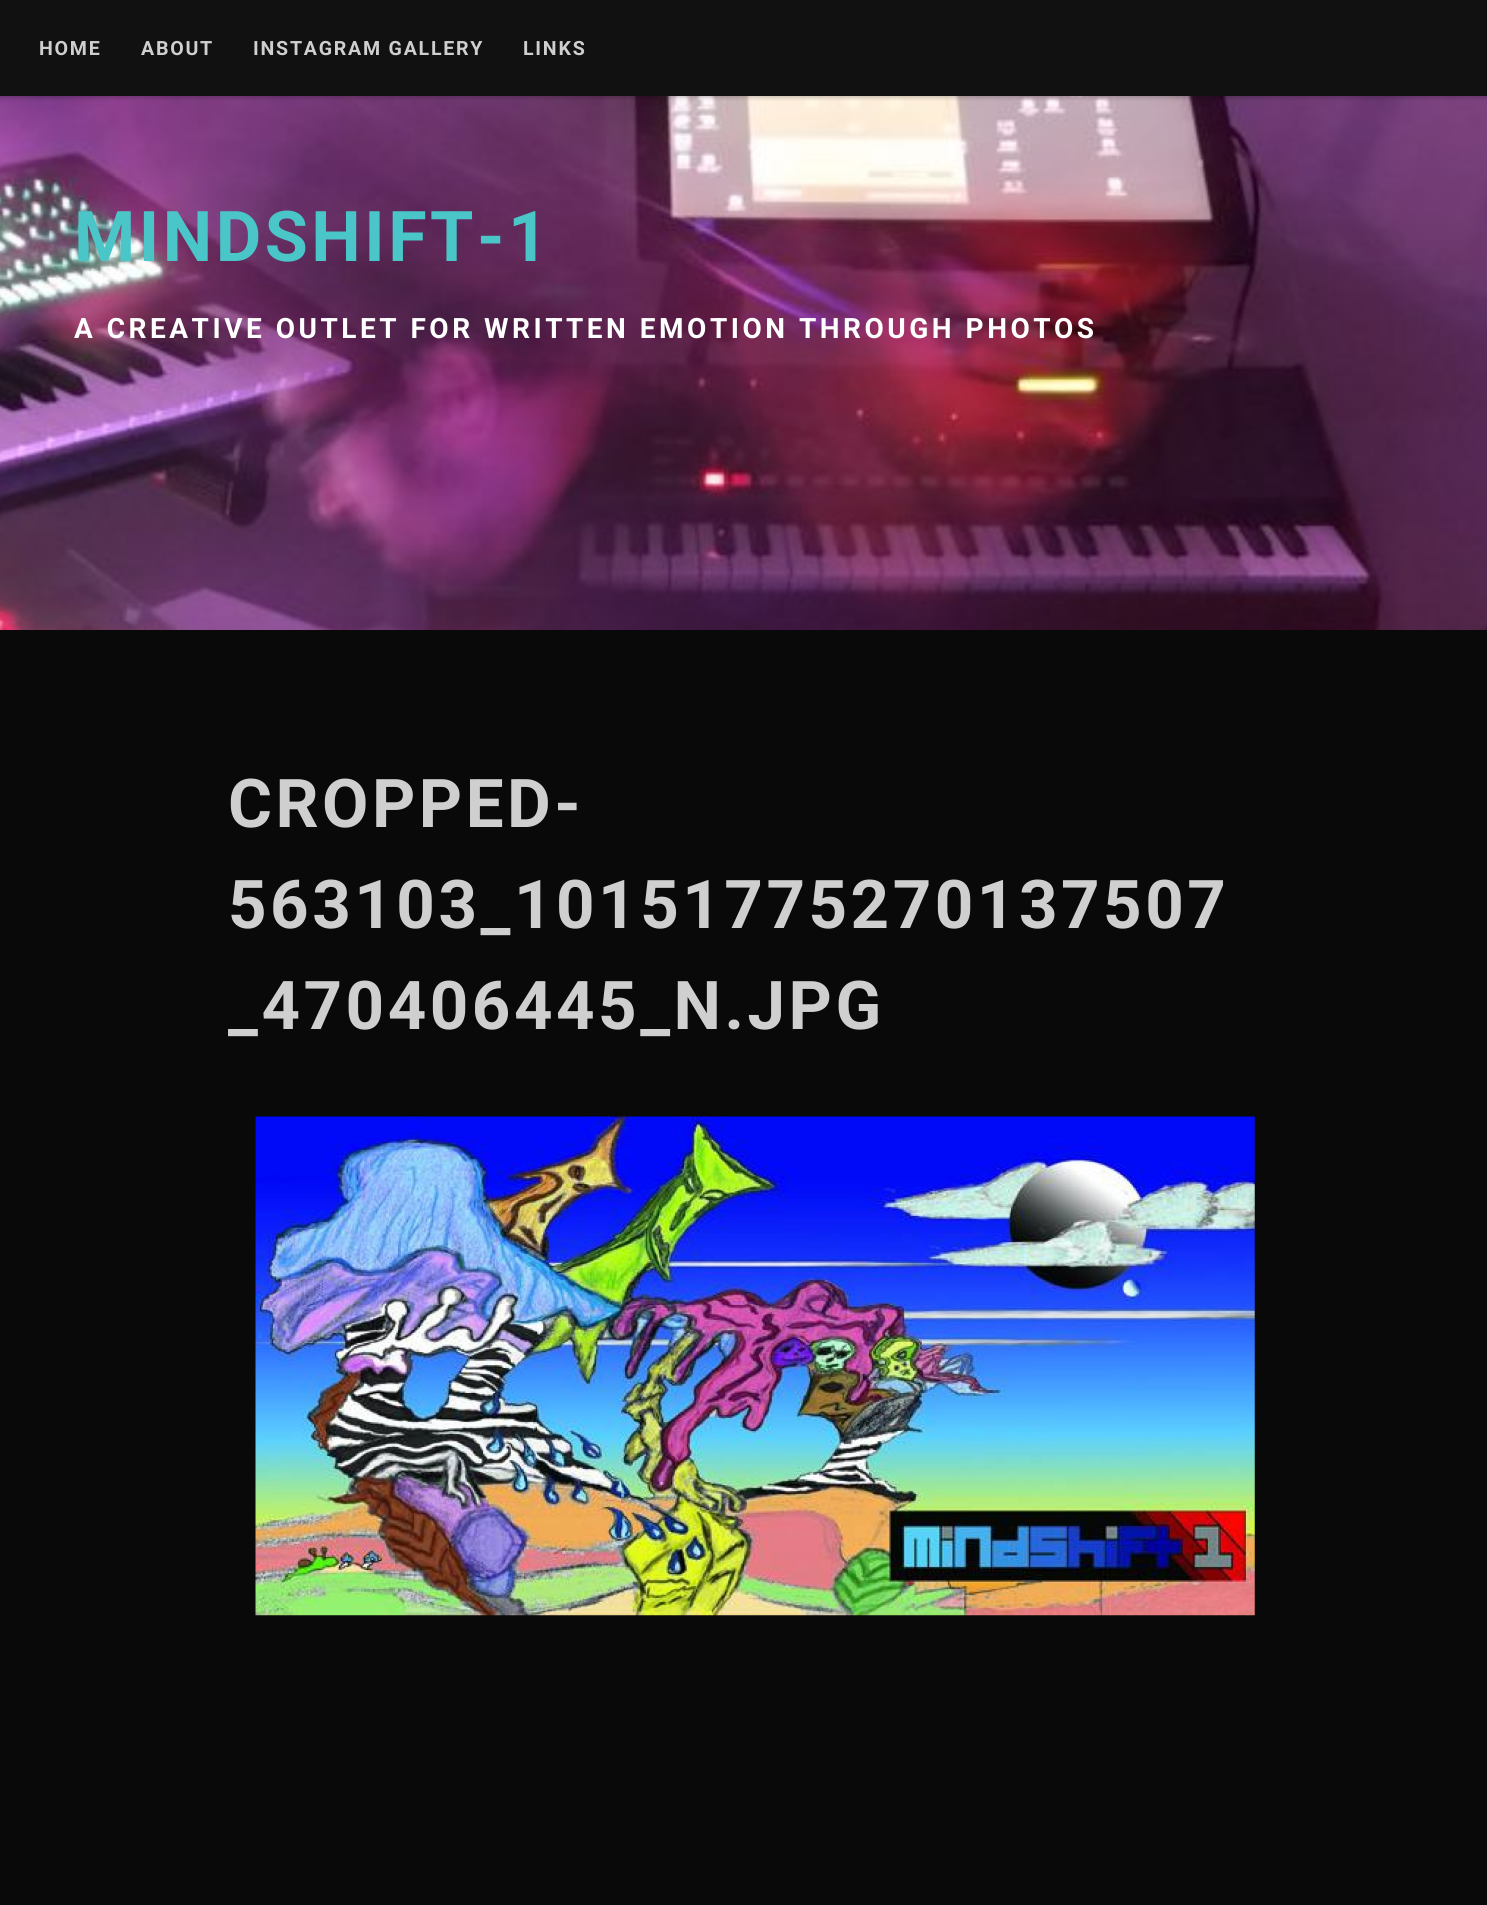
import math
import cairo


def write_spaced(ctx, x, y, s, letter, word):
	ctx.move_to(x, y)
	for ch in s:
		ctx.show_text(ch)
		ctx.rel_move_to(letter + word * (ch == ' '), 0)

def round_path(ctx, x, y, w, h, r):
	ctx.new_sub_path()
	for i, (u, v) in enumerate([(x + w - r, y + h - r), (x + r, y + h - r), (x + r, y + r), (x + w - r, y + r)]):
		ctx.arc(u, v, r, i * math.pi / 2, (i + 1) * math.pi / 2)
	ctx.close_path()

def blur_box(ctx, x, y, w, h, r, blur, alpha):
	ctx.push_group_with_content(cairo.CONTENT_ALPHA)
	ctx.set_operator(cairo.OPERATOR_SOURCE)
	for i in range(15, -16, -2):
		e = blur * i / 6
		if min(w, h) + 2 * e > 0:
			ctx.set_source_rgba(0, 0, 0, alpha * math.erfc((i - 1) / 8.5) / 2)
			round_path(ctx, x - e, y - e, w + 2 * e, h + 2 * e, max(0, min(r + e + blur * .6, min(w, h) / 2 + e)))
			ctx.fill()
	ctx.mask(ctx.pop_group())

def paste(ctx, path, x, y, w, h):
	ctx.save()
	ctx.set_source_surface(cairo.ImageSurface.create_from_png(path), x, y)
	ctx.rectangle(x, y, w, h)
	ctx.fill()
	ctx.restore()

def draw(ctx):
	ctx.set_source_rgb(0.039, 0.039, 0.039)
	ctx.paint()
	paste(ctx, 'media/1.png', 0, 96, 1487, 534)
	ctx.set_source_rgb(0, 0, 0)
	blur_box(ctx, 0, 2, 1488, 96, 0, 2, 0.2)
	ctx.set_source_rgb(0.067, 0.067, 0.067)
	ctx.rectangle(0, 0, 1487, 96)
	ctx.fill()
	ctx.select_font_face('Roboto', cairo.FONT_SLANT_NORMAL, cairo.FONT_WEIGHT_BOLD)
	ctx.set_font_size(19.6)
	ctx.set_source_rgb(0.812, 0.812, 0.812)
	for x, y, s in [
		(39, 55, 'HOME'),
		(141, 55, 'ABOUT'),
		(253, 55, 'INSTAGRAM GALLERY'),
		(523, 55, 'LINKS'),
	]:
		write_spaced(ctx, x, y, s, 1.75, 0)
	ctx.set_font_size(70)
	ctx.set_source_rgb(0.29, 0.776, 0.788)
	write_spaced(ctx, 74, 261, 'MINDSHIFT-1', 3.5, 0)
	ctx.set_font_size(28)
	ctx.set_source_rgb(1, 1, 1)
	write_spaced(ctx, 74, 338, 'A CREATIVE OUTLET FOR WRITTEN EMOTION THROUGH PHOTOS', 3.5, 0)
	ctx.set_font_size(67.25)
	ctx.set_source_rgb(0.812, 0.812, 0.812)
	for x, y, s in [
		(228, 827, 'CROPPED-'),
		(228, 928, '563103_10151775270137507'),
		(228, 1029, '_470406445_N.JPG'),
	]:
		write_spaced(ctx, x, y, s, 3.5, 0)
	paste(ctx, 'media/2.png', 255, 1116, 1000, 500)


surface = cairo.ImageSurface(cairo.FORMAT_RGB24, 1487, 1905)
ctx = cairo.Context(surface)
options = cairo.FontOptions()
options.set_hint_metrics(cairo.HINT_METRICS_OFF)
options.set_hint_style(cairo.HINT_STYLE_NONE)
ctx.set_font_options(options)
ctx.set_miter_limit(4)
draw(ctx)
surface.write_to_png('image.png')
